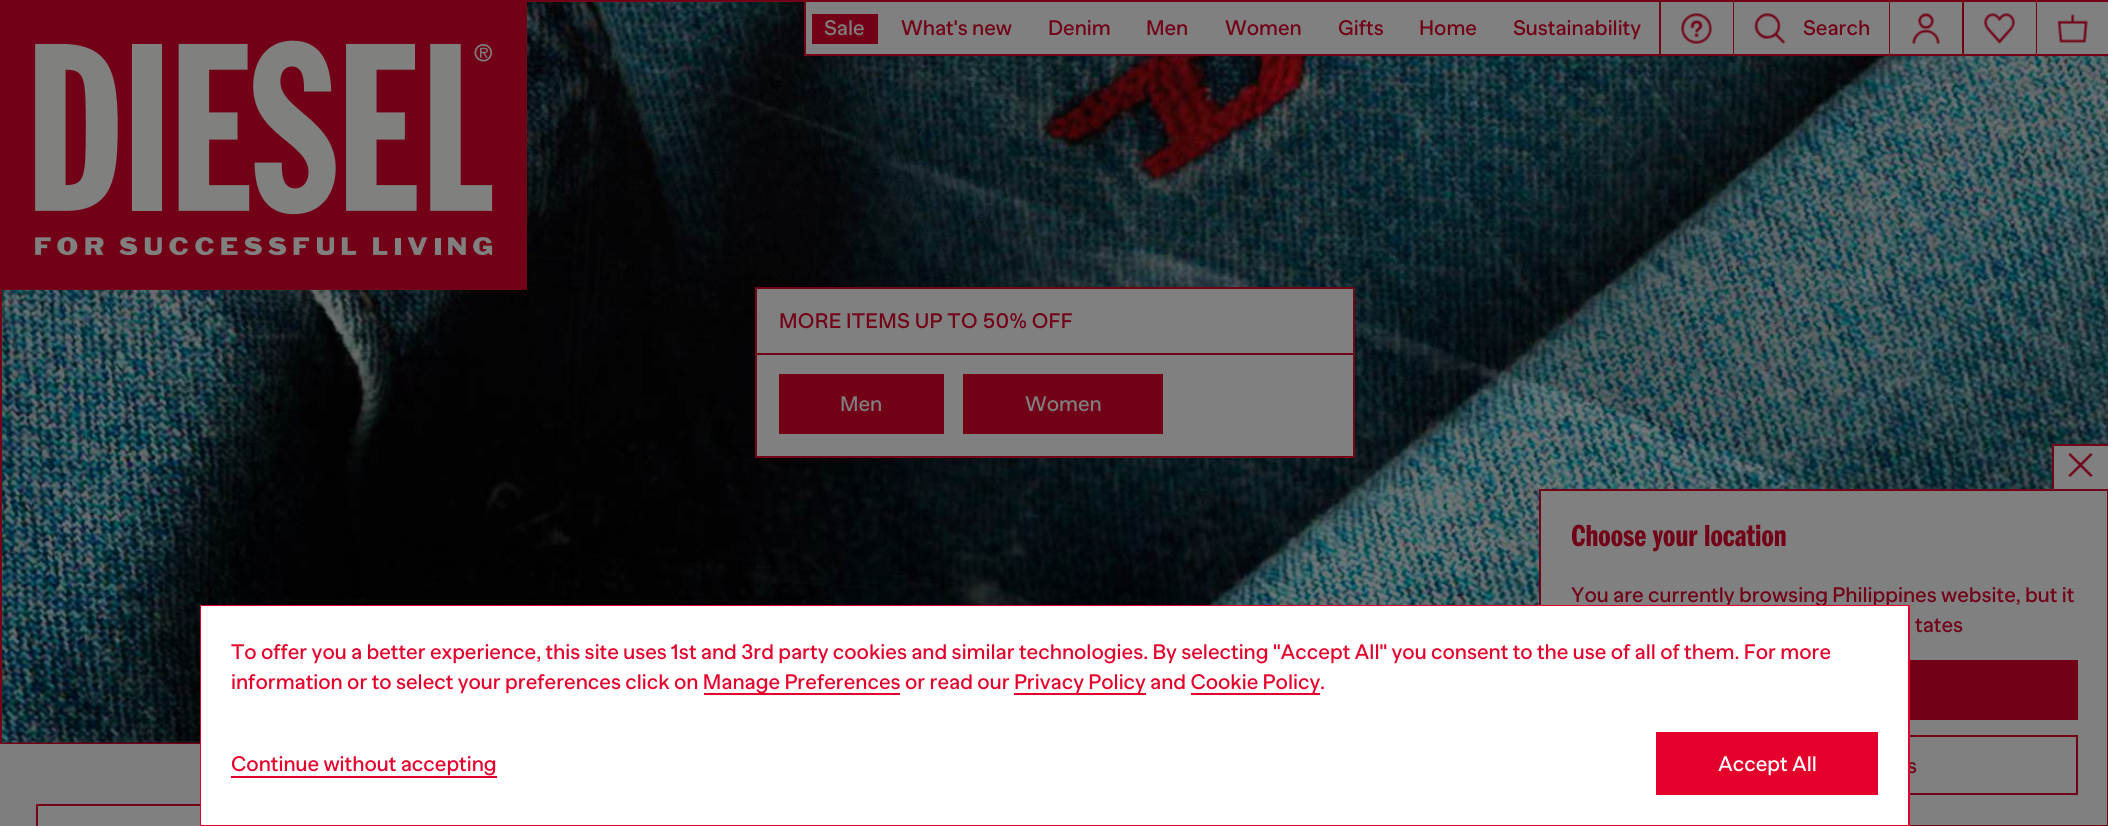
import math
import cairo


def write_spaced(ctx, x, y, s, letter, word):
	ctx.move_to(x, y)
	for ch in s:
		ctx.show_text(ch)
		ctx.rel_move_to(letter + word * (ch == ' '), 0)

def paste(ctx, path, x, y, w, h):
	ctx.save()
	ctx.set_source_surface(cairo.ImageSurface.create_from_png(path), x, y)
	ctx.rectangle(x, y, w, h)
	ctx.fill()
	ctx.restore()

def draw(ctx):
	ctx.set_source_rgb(1, 1, 1)
	ctx.paint()
	ctx.rectangle(1, 1, 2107, 742)
	ctx.set_source_rgb(0.447, 0, 0.086)
	ctx.stroke()
	paste(ctx, 'media/7.png', 2, 2, 2106, 741)
	paste(ctx, 'media/1.png', 2, 2, 525, 288)
	ctx.set_source_rgb(0.502, 0.502, 0.502)
	ctx.rectangle(806, 2, 1230, 52)
	ctx.fill()
	ctx.set_source_rgb(0.447, 0, 0.086)
	ctx.rectangle(804, 0, 2, 56)
	ctx.rectangle(806, 54, 853, 2)
	ctx.rectangle(812, 14, 66, 30)
	ctx.fill()
	ctx.select_font_face('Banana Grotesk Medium')
	ctx.set_font_size(21)
	ctx.set_source_rgb(0.502, 0.502, 0.502)
	ctx.move_to(824, 35)
	ctx.show_text('Sale')
	ctx.set_source_rgb(0.447, 0, 0.086)
	for x, y, s in [
		(901, 35, 'What\'s new'),
		(1048, 35, 'Denim'),
		(1146, 35, 'Men'),
		(1225, 35, 'Women'),
		(1338, 35, 'Gifts'),
		(1419, 35, 'Home'),
		(1513, 35, 'Sustainability'),
	]:
		ctx.move_to(x, y)
		ctx.show_text(s)
	ctx.rectangle(1659, 0, 2, 56)
	ctx.fill()
	ctx.rectangle(1661, 54, 72, 2)
	ctx.fill()
	paste(ctx, 'media/2.png', 1681, 13, 31, 31)
	ctx.rectangle(1733, 0, 1, 56)
	ctx.fill()
	ctx.rectangle(1734, 54, 155, 2)
	ctx.fill()
	paste(ctx, 'media/3.png', 1754, 13, 32, 31)
	ctx.move_to(1803, 35)
	ctx.show_text('Search')
	ctx.rectangle(1889, 0, 1, 56)
	ctx.fill()
	ctx.rectangle(1890, 54, 72, 2)
	ctx.fill()
	paste(ctx, 'media/4.png', 1912, 13, 28, 31)
	ctx.rectangle(1962, 0, 2, 56)
	ctx.fill()
	ctx.rectangle(1964, 54, 72, 2)
	ctx.fill()
	paste(ctx, 'media/5.png', 1984, 13, 31, 31)
	ctx.rectangle(2036, 0, 1, 56)
	ctx.fill()
	ctx.set_source_rgb(0.502, 0.502, 0.502)
	ctx.rectangle(2037, 2, 71, 52)
	ctx.fill()
	ctx.set_source_rgb(0.447, 0, 0.086)
	ctx.rectangle(2037, 54, 71, 2)
	ctx.fill()
	paste(ctx, 'media/6.png', 2057, 14, 31, 29)
	ctx.set_source_rgb(0.502, 0.502, 0.502)
	ctx.rectangle(756, 288, 598, 169)
	ctx.fill_preserve()
	ctx.set_source_rgb(0.447, 0, 0.086)
	ctx.stroke()
	write_spaced(ctx, 779, 328, 'MORE ITEMS UP TO 50% OFF', 0.3, 0)
	ctx.rectangle(756, 353, 597, 2)
	ctx.fill()
	ctx.rectangle(779, 374, 165, 60)
	ctx.fill()
	ctx.set_source_rgb(0.502, 0.502, 0.502)
	ctx.move_to(840, 411)
	ctx.show_text('Men')
	ctx.set_source_rgb(0.447, 0, 0.086)
	ctx.rectangle(963, 374, 200, 60)
	ctx.fill()
	ctx.set_source_rgb(0.502, 0.502, 0.502)
	ctx.move_to(1025, 411)
	ctx.show_text('Women')
	ctx.set_source_rgb(0.49, 0.49, 0.49)
	ctx.rectangle(0, 744, 200, 82)
	ctx.fill()
	ctx.set_source_rgb(0.502, 0.502, 0.502)
	ctx.rectangle(38, 806, 162, 20)
	ctx.fill()
	ctx.set_source_rgb(0.447, 0, 0.086)
	ctx.rectangle(36, 804, 164, 2)
	ctx.rectangle(36, 804, 2, 22)
	ctx.fill()
	ctx.set_source_rgb(0.502, 0.502, 0.502)
	ctx.rectangle(2054, 446, 54, 43)
	ctx.fill()
	ctx.set_source_rgb(0.447, 0, 0.086)
	ctx.rectangle(2052, 444, 56, 2)
	ctx.rectangle(2052, 444, 2, 45)
	ctx.fill()
	paste(ctx, 'media/8.png', 2068, 453, 25, 24)
	ctx.set_source_rgb(0.502, 0.502, 0.502)
	ctx.rectangle(1540, 490, 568, 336)
	ctx.fill_preserve()
	ctx.set_source_rgb(0.447, 0, 0.086)
	ctx.stroke()
	ctx.select_font_face('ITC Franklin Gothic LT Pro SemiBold')
	ctx.set_font_size(31.5)
	ctx.move_to(1571, 546)
	ctx.show_text('Choose your location')
	ctx.select_font_face('Banana Grotesk Medium')
	ctx.set_font_size(21)
	ctx.move_to(1571, 602)
	ctx.show_text('You are currently browsing Philippines website, but it')
	ctx.move_to(1915, 632)
	ctx.show_text('tates')
	ctx.rectangle(1910, 660, 168, 60)
	ctx.fill()
	ctx.rectangle(1572, 736, 505, 58)
	ctx.stroke()
	ctx.move_to(1907, 773)
	ctx.show_text('s')
	ctx.rectangle(201, 606, 1708, 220)
	ctx.set_source_rgb(0.894, 0, 0.169)
	ctx.stroke()
	ctx.set_source_rgb(1, 1, 1)
	ctx.rectangle(201, 606, 1707, 219)
	ctx.fill()
	ctx.set_source_rgb(0.894, 0, 0.169)
	for x, y, s in [
		(231, 659, 'To offer you a better experience, this site uses 1st and 3rd party cookies and similar technologies. By selecting "Accept All" you consent to the use of all of them. For more'),
		(231, 689, 'information or to select your preferences click on Manage Preferences'),
		(905, 689, 'or read our Privacy Policy'),
		(1150, 689, 'and Cookie Policy'),
		(1320, 689, '.'),
	]:
		ctx.move_to(x, y)
		ctx.show_text(s)
	ctx.rectangle(704, 693, 196, 2)
	ctx.rectangle(1014, 693, 132, 2)
	ctx.rectangle(1191, 693, 129, 2)
	ctx.fill()
	ctx.move_to(231, 771)
	ctx.show_text('Continue without accepting')
	ctx.rectangle(231, 776, 266, 2)
	ctx.fill()
	ctx.rectangle(1656, 732, 222, 63)
	ctx.fill()
	ctx.set_source_rgb(1, 1, 1)
	ctx.move_to(1718, 771)
	ctx.show_text('Accept All')


surface = cairo.ImageSurface(cairo.FORMAT_RGB24, 2108, 826)
ctx = cairo.Context(surface)
options = cairo.FontOptions()
options.set_hint_metrics(cairo.HINT_METRICS_OFF)
options.set_hint_style(cairo.HINT_STYLE_NONE)
ctx.set_font_options(options)
ctx.set_miter_limit(4)
draw(ctx)
surface.write_to_png('image.png')
